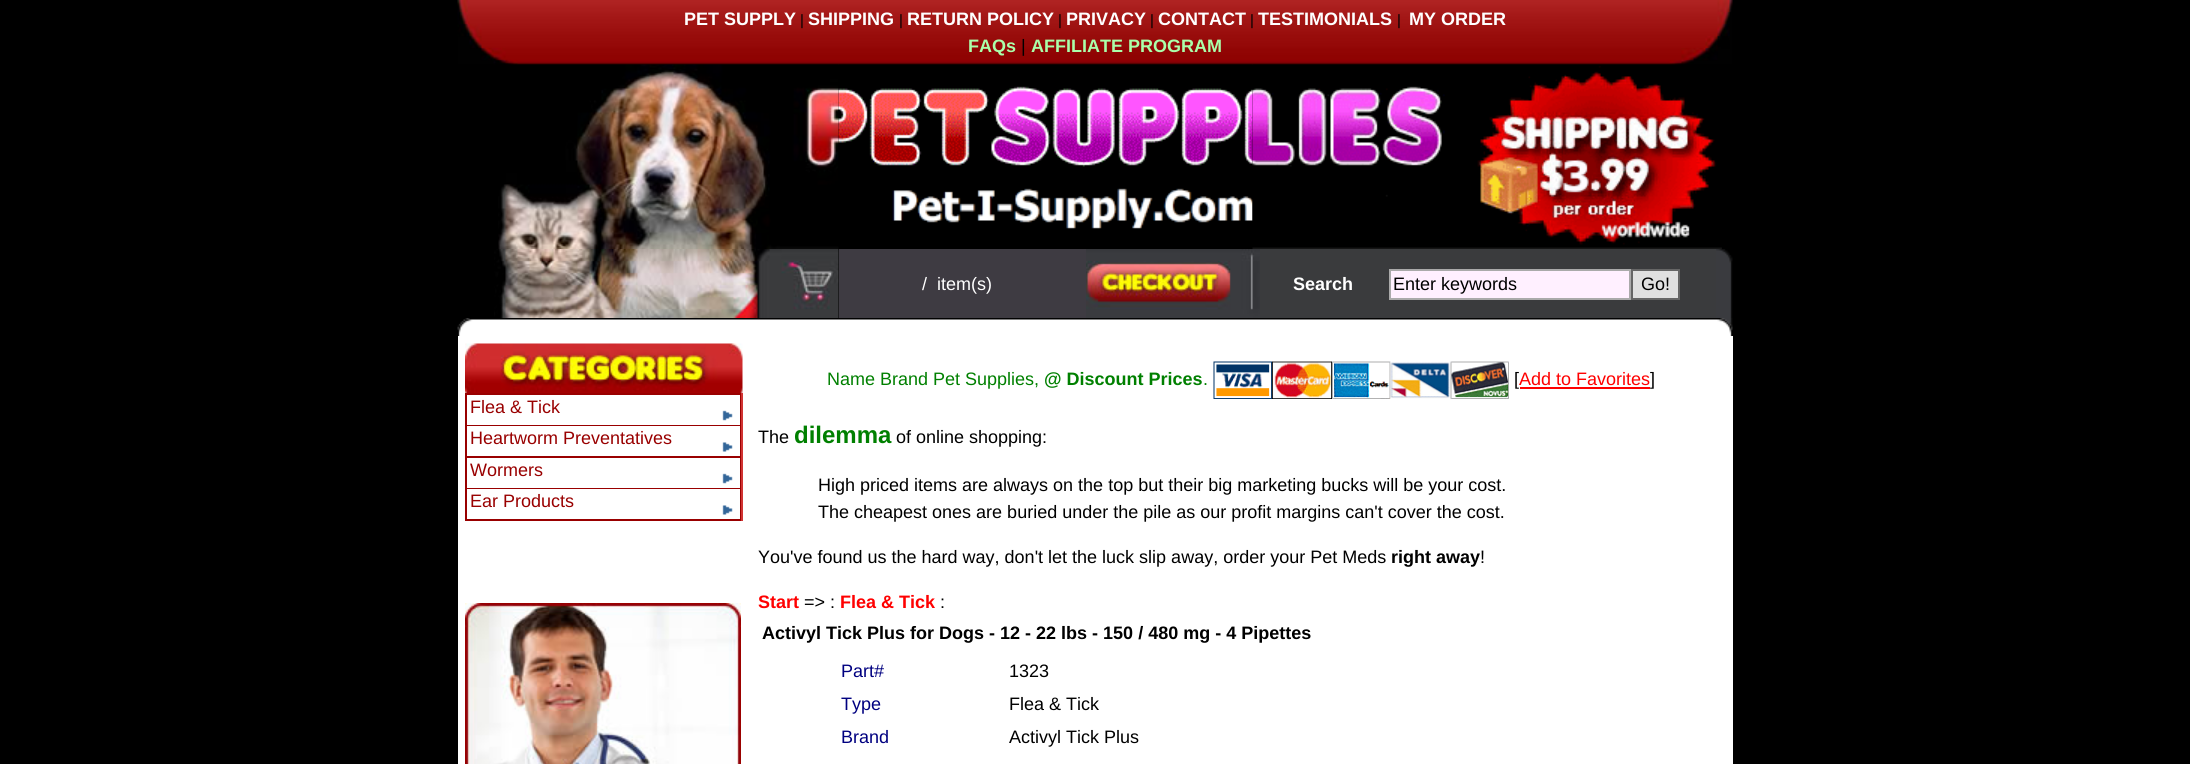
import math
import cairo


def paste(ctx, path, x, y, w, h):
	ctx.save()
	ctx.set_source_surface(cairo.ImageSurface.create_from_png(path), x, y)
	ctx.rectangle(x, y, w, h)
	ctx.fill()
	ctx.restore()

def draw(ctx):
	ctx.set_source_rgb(0, 0, 0)
	ctx.paint()
	paste(ctx, 'media/1.png', 457, 0, 1276, 65)
	ctx.select_font_face('Liberation Sans', cairo.FONT_SLANT_NORMAL, cairo.FONT_WEIGHT_BOLD)
	ctx.set_font_size(18)
	ctx.set_source_rgb(1, 1, 1)
	ctx.move_to(684, 25)
	ctx.show_text('PET SUPPLY')
	ctx.select_font_face('Liberation Sans')
	ctx.set_font_size(15)
	ctx.set_source_rgb(0, 0, 0)
	ctx.move_to(800, 25)
	ctx.show_text('|')
	ctx.select_font_face('Liberation Sans', cairo.FONT_SLANT_NORMAL, cairo.FONT_WEIGHT_BOLD)
	ctx.set_font_size(18)
	ctx.set_source_rgb(1, 1, 1)
	ctx.move_to(808, 25)
	ctx.show_text('SHIPPING')
	ctx.select_font_face('Liberation Sans')
	ctx.set_font_size(15)
	ctx.set_source_rgb(0, 0, 0)
	ctx.move_to(899, 25)
	ctx.show_text('|')
	ctx.select_font_face('Liberation Sans', cairo.FONT_SLANT_NORMAL, cairo.FONT_WEIGHT_BOLD)
	ctx.set_font_size(18)
	ctx.set_source_rgb(1, 1, 1)
	ctx.move_to(907, 25)
	ctx.show_text('RETURN POLICY')
	ctx.select_font_face('Liberation Sans')
	ctx.set_font_size(15)
	ctx.set_source_rgb(0, 0, 0)
	ctx.move_to(1058, 25)
	ctx.show_text('|')
	ctx.select_font_face('Liberation Sans', cairo.FONT_SLANT_NORMAL, cairo.FONT_WEIGHT_BOLD)
	ctx.set_font_size(18)
	ctx.set_source_rgb(1, 1, 1)
	ctx.move_to(1066, 25)
	ctx.show_text('PRIVACY')
	ctx.select_font_face('Liberation Sans')
	ctx.set_font_size(15)
	ctx.set_source_rgb(0, 0, 0)
	ctx.move_to(1150, 25)
	ctx.show_text('|')
	ctx.select_font_face('Liberation Sans', cairo.FONT_SLANT_NORMAL, cairo.FONT_WEIGHT_BOLD)
	ctx.set_font_size(18)
	ctx.set_source_rgb(1, 1, 1)
	ctx.move_to(1158, 25)
	ctx.show_text('CONTACT')
	ctx.select_font_face('Liberation Sans')
	ctx.set_font_size(15)
	ctx.set_source_rgb(0, 0, 0)
	ctx.move_to(1250, 25)
	ctx.show_text('|')
	ctx.select_font_face('Liberation Sans', cairo.FONT_SLANT_NORMAL, cairo.FONT_WEIGHT_BOLD)
	ctx.set_font_size(18)
	ctx.set_source_rgb(1, 1, 1)
	ctx.move_to(1258, 25)
	ctx.show_text('TESTIMONIALS')
	ctx.select_font_face('Liberation Sans')
	ctx.set_font_size(15)
	ctx.set_source_rgb(0, 0, 0)
	ctx.move_to(1397, 25)
	ctx.show_text('|')
	ctx.select_font_face('Liberation Sans', cairo.FONT_SLANT_NORMAL, cairo.FONT_WEIGHT_BOLD)
	ctx.set_font_size(18)
	ctx.set_source_rgb(1, 1, 1)
	ctx.move_to(1409, 25)
	ctx.show_text('MY ORDER')
	ctx.set_source_rgb(0.667, 1, 0.667)
	ctx.move_to(968, 52)
	ctx.show_text('FAQs')
	ctx.select_font_face('Liberation Sans')
	ctx.set_source_rgb(0, 0, 0)
	ctx.move_to(1021, 52)
	ctx.show_text('|')
	ctx.select_font_face('Liberation Sans', cairo.FONT_SLANT_NORMAL, cairo.FONT_WEIGHT_BOLD)
	ctx.set_source_rgb(0.667, 1, 0.667)
	ctx.move_to(1031, 52)
	ctx.show_text('AFFILIATE PROGRAM')
	paste(ctx, 'media/2.png', 498, 64, 341, 185)
	paste(ctx, 'media/3.png', 838, 64, 415, 165)
	paste(ctx, 'media/4.png', 1252, 64, 470, 185)
	paste(ctx, 'media/5.png', 494, 249, 345, 69)
	ctx.set_source_rgb(0.243, 0.231, 0.259)
	ctx.rectangle(839, 249, 247, 69)
	ctx.fill()
	ctx.select_font_face('Liberation Sans')
	ctx.set_source_rgb(1, 1, 1)
	ctx.move_to(922, 290)
	ctx.show_text('/')
	ctx.move_to(937, 290)
	ctx.show_text('item(s)')
	paste(ctx, 'media/6.png', 1086, 249, 174, 69)
	ctx.set_source_rgb(0.227, 0.231, 0.239)
	ctx.rectangle(1260, 249, 456, 69)
	ctx.fill()
	ctx.select_font_face('Liberation Sans', cairo.FONT_SLANT_NORMAL, cairo.FONT_WEIGHT_BOLD)
	ctx.set_source_rgb(1, 1, 1)
	ctx.move_to(1293, 290)
	ctx.show_text('Search')
	ctx.set_source_rgb(1, 0.941, 1)
	ctx.rectangle(1390, 270, 240, 29)
	ctx.fill_preserve()
	ctx.set_source_rgb(0.667, 0.667, 0.667)
	ctx.stroke()
	ctx.select_font_face('Liberation Sans')
	ctx.set_source_rgb(0, 0, 0)
	ctx.move_to(1393, 290)
	ctx.show_text('Enter keywords')
	ctx.set_source_rgb(0.878, 0.878, 0.878)
	ctx.rectangle(1632, 270, 47, 29)
	ctx.fill_preserve()
	ctx.set_source_rgb(0.4, 0.4, 0.4)
	ctx.stroke()
	ctx.set_source_rgb(0, 0, 0)
	ctx.move_to(1641, 290)
	ctx.show_text('Go!')
	paste(ctx, 'media/7.png', 1716, 249, 17, 69)
	paste(ctx, 'media/8.png', 457, 318, 1276, 18)
	ctx.set_source_rgb(1, 1, 1)
	ctx.rectangle(458, 336, 1275, 428)
	ctx.fill()
	ctx.set_source_rgb(0.6, 0, 0)
	ctx.rectangle(465, 393, 276, 128)
	ctx.fill()
	ctx.set_source_rgb(1, 1, 1)
	ctx.rectangle(467, 395, 273, 30)
	ctx.fill()
	ctx.set_source_rgb(0.6, 0, 0)
	ctx.move_to(470, 413)
	ctx.show_text('Flea & Tick')
	paste(ctx, 'media/9.png', 722, 410, 11, 11)
	paste(ctx, 'media/10.png', 465, 343, 278, 50)
	ctx.set_source_rgb(0.82, 0.2, 0.196)
	ctx.rectangle(741, 393, 2, 128)
	ctx.fill()
	paste(ctx, 'media/11.png', 465, 603, 276, 161)
	ctx.set_source_rgb(0, 0.502, 0)
	ctx.move_to(827, 385)
	ctx.show_text('Name Brand Pet Supplies,')
	ctx.select_font_face('Liberation Sans', cairo.FONT_SLANT_NORMAL, cairo.FONT_WEIGHT_BOLD)
	ctx.move_to(1044, 385)
	ctx.show_text('@ Discount Prices')
	ctx.select_font_face('Liberation Sans')
	ctx.move_to(1203, 385)
	ctx.show_text('.')
	paste(ctx, 'media/12.png', 1213, 361, 59, 38)
	paste(ctx, 'media/13.png', 1272, 361, 60, 38)
	paste(ctx, 'media/14.png', 1332, 361, 59, 38)
	paste(ctx, 'media/15.png', 1390, 361, 60, 38)
	paste(ctx, 'media/16.png', 1450, 361, 59, 38)
	ctx.set_source_rgb(0, 0, 0)
	ctx.move_to(1514, 385)
	ctx.show_text('[')
	ctx.set_source_rgb(1, 0, 0)
	ctx.move_to(1519, 385)
	ctx.show_text('Add to Favorites')
	ctx.rectangle(1520, 387, 130, 2)
	ctx.fill()
	ctx.set_source_rgb(0, 0, 0)
	ctx.move_to(1650, 385)
	ctx.show_text(']')
	ctx.move_to(758, 443)
	ctx.show_text('The')
	ctx.select_font_face('Liberation Sans', cairo.FONT_SLANT_NORMAL, cairo.FONT_WEIGHT_BOLD)
	ctx.set_font_size(24)
	ctx.set_source_rgb(0, 0.502, 0)
	ctx.move_to(794, 443)
	ctx.show_text('dilemma')
	ctx.select_font_face('Liberation Sans')
	ctx.set_font_size(18)
	ctx.set_source_rgb(0, 0, 0)
	for x, y, s in [
		(896, 443, 'of online shopping:'),
		(818, 491, 'High priced items are always on the top but their big marketing bucks will be your cost.'),
		(818, 518, 'The cheapest ones are buried under the pile as our profit margins can\'t cover the cost.'),
		(758, 563, 'You\'ve found us the hard way, don\'t let the luck slip away, order your Pet Meds'),
	]:
		ctx.move_to(x, y)
		ctx.show_text(s)
	ctx.select_font_face('Liberation Sans', cairo.FONT_SLANT_NORMAL, cairo.FONT_WEIGHT_BOLD)
	ctx.move_to(1391, 563)
	ctx.show_text('right away')
	ctx.select_font_face('Liberation Sans')
	ctx.move_to(1480, 563)
	ctx.show_text('!')
	ctx.select_font_face('Liberation Sans', cairo.FONT_SLANT_NORMAL, cairo.FONT_WEIGHT_BOLD)
	ctx.set_source_rgb(1, 0, 0)
	ctx.move_to(758, 608)
	ctx.show_text('Start')
	ctx.select_font_face('Liberation Sans')
	ctx.set_source_rgb(0, 0, 0)
	ctx.move_to(804, 608)
	ctx.show_text('=> :')
	ctx.select_font_face('Liberation Sans', cairo.FONT_SLANT_NORMAL, cairo.FONT_WEIGHT_BOLD)
	ctx.set_source_rgb(1, 0, 0)
	ctx.move_to(840, 608)
	ctx.show_text('Flea & Tick')
	ctx.select_font_face('Liberation Sans')
	ctx.set_source_rgb(0, 0, 0)
	ctx.move_to(940, 608)
	ctx.show_text(':')
	ctx.select_font_face('Liberation Sans', cairo.FONT_SLANT_NORMAL, cairo.FONT_WEIGHT_BOLD)
	ctx.move_to(762, 639)
	ctx.show_text('Activyl Tick Plus for Dogs - 12 - 22 lbs - 150 / 480 mg - 4 Pipettes')
	ctx.select_font_face('Liberation Sans')
	ctx.set_source_rgb(0, 0, 0.502)
	ctx.move_to(841, 677)
	ctx.show_text('Part#')
	ctx.set_source_rgb(0, 0, 0)
	ctx.move_to(1009, 677)
	ctx.show_text('1323')
	ctx.set_source_rgb(0, 0, 0.502)
	ctx.move_to(841, 710)
	ctx.show_text('Type')
	ctx.set_source_rgb(0, 0, 0)
	ctx.move_to(1009, 710)
	ctx.show_text('Flea & Tick')
	ctx.set_source_rgb(0, 0, 0.502)
	ctx.move_to(841, 743)
	ctx.show_text('Brand')
	ctx.set_source_rgb(0, 0, 0)
	ctx.move_to(1009, 743)
	ctx.show_text('Activyl Tick Plus')
	ctx.set_source_rgb(1, 1, 1)
	ctx.rectangle(467, 426, 273, 30)
	ctx.fill()
	ctx.set_source_rgb(0.6, 0, 0)
	ctx.move_to(470, 444)
	ctx.show_text('Heartworm Preventatives')
	paste(ctx, 'media/17.png', 722, 442, 11, 10)
	ctx.set_source_rgb(1, 1, 1)
	ctx.rectangle(467, 458, 273, 30)
	ctx.fill()
	ctx.set_source_rgb(0.6, 0, 0)
	ctx.move_to(470, 476)
	ctx.show_text('Wormers')
	paste(ctx, 'media/9.png', 722, 473, 11, 11)
	ctx.set_source_rgb(1, 1, 1)
	ctx.rectangle(467, 489, 273, 30)
	ctx.fill()
	ctx.set_source_rgb(0.6, 0, 0)
	ctx.move_to(470, 507)
	ctx.show_text('Ear Products')
	paste(ctx, 'media/17.png', 722, 505, 11, 10)


surface = cairo.ImageSurface(cairo.FORMAT_RGB24, 2190, 764)
ctx = cairo.Context(surface)
options = cairo.FontOptions()
options.set_hint_metrics(cairo.HINT_METRICS_OFF)
options.set_hint_style(cairo.HINT_STYLE_NONE)
ctx.set_font_options(options)
ctx.set_miter_limit(4)
draw(ctx)
surface.write_to_png('image.png')
